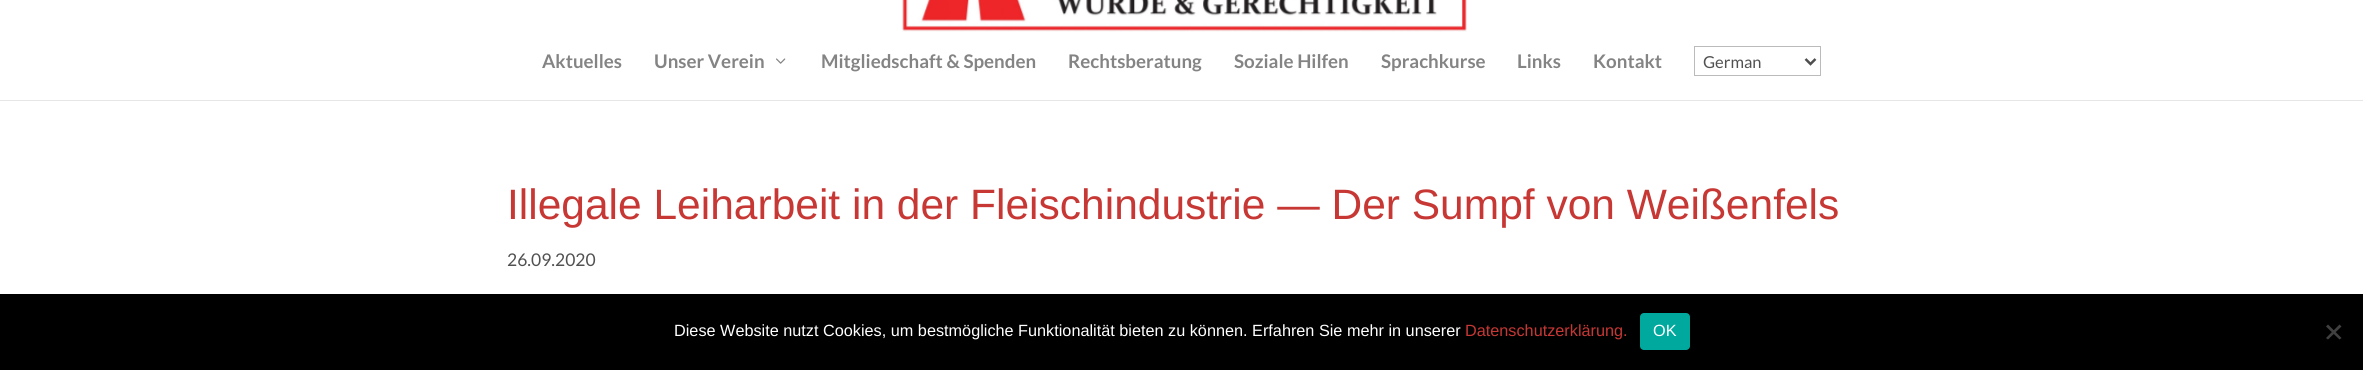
import math
import cairo


def round_path(ctx, x, y, w, h, r):
	ctx.new_sub_path()
	for i, (u, v) in enumerate([(x + w - r, y + h - r), (x + r, y + h - r), (x + r, y + r), (x + w - r, y + r)]):
		ctx.arc(u, v, r, i * math.pi / 2, (i + 1) * math.pi / 2)
	ctx.close_path()

def paste(ctx, path, x, y, w, h):
	ctx.save()
	ctx.set_source_surface(cairo.ImageSurface.create_from_png(path), x, y)
	ctx.rectangle(x, y, w, h)
	ctx.fill()
	ctx.restore()

def draw(ctx):
	ctx.set_source_rgb(1, 1, 1)
	ctx.paint()
	ctx.set_source_rgb(0.902, 0.902, 0.902)
	ctx.new_path()
	ctx.move_to(0, 100)
	ctx.line_to(0, 101)
	ctx.line_to(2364, 101)
	ctx.line_to(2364, -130)
	ctx.line_to(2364, 100)
	ctx.close_path()
	ctx.fill()
	paste(ctx, 'media/1.png', 902, 0, 565, 32)
	ctx.select_font_face('Lato', cairo.FONT_SLANT_NORMAL, cairo.FONT_WEIGHT_BOLD)
	ctx.set_font_size(18.75)
	ctx.set_source_rgb(0.518, 0.518, 0.518)
	ctx.move_to(542, 68)
	ctx.show_text('Aktuelles')
	ctx.move_to(654, 68)
	ctx.show_text('Unser Verein')
	paste(ctx, 'media/2.png', 776, 58, 10, 6)
	for x, y, s in [
		(821, 68, 'Mitgliedschaft & Spenden'),
		(1068, 68, 'Rechtsberatung'),
		(1234, 68, 'Soziale Hilfen'),
		(1381, 68, 'Sprachkurse'),
		(1517, 68, 'Links'),
		(1593, 68, 'Kontakt'),
	]:
		ctx.move_to(x, y)
		ctx.show_text(s)
	ctx.rectangle(1694.5, 46.5, 126, 29)
	ctx.set_source_rgb(0.733, 0.733, 0.733)
	ctx.set_line_width(1)
	ctx.stroke()
	ctx.new_path()
	ctx.move_to(1805.5, 59)
	ctx.line_to(1810.5, 64)
	ctx.line_to(1815.5, 59)
	ctx.set_source_rgb(0.306, 0.306, 0.306)
	ctx.set_line_width(2.5)
	ctx.stroke()
	ctx.select_font_face('Lato')
	ctx.set_font_size(16.5)
	ctx.set_source_rgb(0.318, 0.318, 0.318)
	ctx.move_to(1703, 68)
	ctx.show_text('German')
	ctx.select_font_face('Liberation Sans')
	ctx.set_font_size(42.5)
	ctx.set_source_rgb(0.78, 0.216, 0.204)
	ctx.move_to(507, 219)
	ctx.show_text('Illegale Leiharbeit in der Fleischindustrie — Der Sumpf von Weißenfels')
	ctx.select_font_face('Lato')
	ctx.set_font_size(17.5)
	ctx.set_source_rgb(0.318, 0.318, 0.318)
	ctx.move_to(507, 266)
	ctx.show_text('26.09.2020')
	ctx.set_source_rgb(0, 0, 0)
	ctx.rectangle(0, 294, 2363, 76)
	ctx.fill()
	ctx.select_font_face('Liberation Sans')
	ctx.set_font_size(16.25)
	ctx.set_source_rgb(1, 1, 1)
	ctx.move_to(674, 336)
	ctx.show_text('Diese Website nutzt Cookies, um bestmögliche Funktionalität bieten zu können. Erfahren Sie mehr in unserer')
	ctx.set_source_rgb(0.78, 0.216, 0.204)
	ctx.move_to(1465, 336)
	ctx.show_text('Datenschutzerklärung.')
	ctx.set_source_rgb(0, 0.663, 0.616)
	round_path(ctx, 1640, 313, 50, 37, 4)
	ctx.fill()
	ctx.set_source_rgb(1, 1, 1)
	ctx.move_to(1653, 336)
	ctx.show_text('OK')
	ctx.set_source_rgb(0.251, 0.251, 0.251)
	ctx.new_path()
	ctx.move_to(2339.5, 324.5)
	ctx.line_to(2341.5, 326.5)
	ctx.line_to(2328, 339.5)
	ctx.line_to(2326, 338)
	ctx.close_path()
	ctx.fill()
	ctx.new_path()
	ctx.move_to(2326, 326.5)
	ctx.line_to(2328, 324.5)
	ctx.line_to(2341.5, 338)
	ctx.line_to(2339.5, 339.5)
	ctx.close_path()
	ctx.fill()


surface = cairo.ImageSurface(cairo.FORMAT_RGB24, 2363, 370)
ctx = cairo.Context(surface)
options = cairo.FontOptions()
options.set_hint_metrics(cairo.HINT_METRICS_OFF)
options.set_hint_style(cairo.HINT_STYLE_NONE)
ctx.set_font_options(options)
ctx.set_miter_limit(4)
draw(ctx)
surface.write_to_png('image.png')
